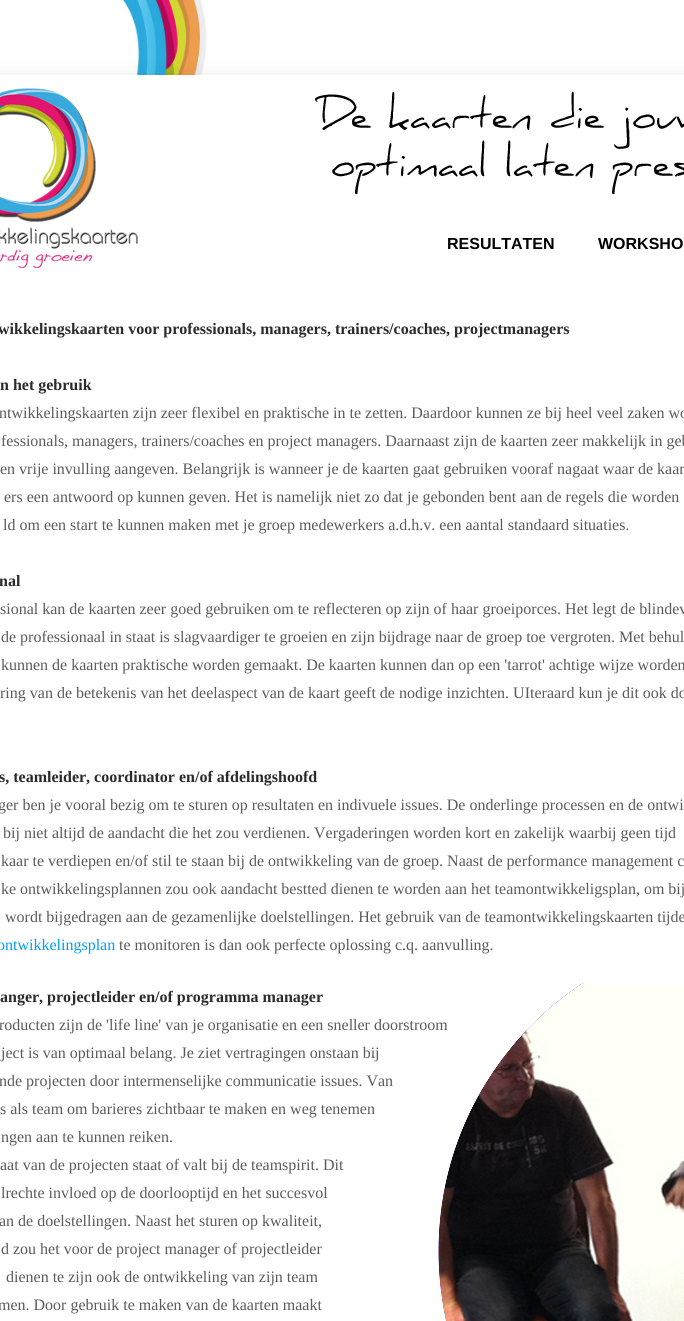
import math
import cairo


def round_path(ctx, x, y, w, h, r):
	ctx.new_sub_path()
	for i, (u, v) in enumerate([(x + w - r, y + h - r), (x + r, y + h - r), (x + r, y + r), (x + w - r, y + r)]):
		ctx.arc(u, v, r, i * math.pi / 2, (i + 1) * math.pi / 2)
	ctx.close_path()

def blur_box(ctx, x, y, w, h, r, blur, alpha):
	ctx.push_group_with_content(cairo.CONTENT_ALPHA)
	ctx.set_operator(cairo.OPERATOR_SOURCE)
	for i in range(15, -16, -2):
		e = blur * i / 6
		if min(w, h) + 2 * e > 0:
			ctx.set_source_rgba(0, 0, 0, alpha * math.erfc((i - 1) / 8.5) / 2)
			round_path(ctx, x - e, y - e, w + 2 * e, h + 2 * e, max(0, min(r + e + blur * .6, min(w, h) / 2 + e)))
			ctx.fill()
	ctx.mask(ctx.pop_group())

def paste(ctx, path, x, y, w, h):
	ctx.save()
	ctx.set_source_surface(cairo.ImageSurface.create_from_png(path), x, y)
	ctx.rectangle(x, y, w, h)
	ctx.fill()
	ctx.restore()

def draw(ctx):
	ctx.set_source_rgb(1, 1, 1)
	ctx.paint()
	paste(ctx, 'media/1.png', 0, 0, 682, 75)
	ctx.set_source_rgb(0, 0, 0)
	blur_box(ctx, -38, 78, 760, 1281, 8, 10, 0.1)
	ctx.set_source_rgb(1, 1, 1)
	ctx.rectangle(0, 270, 684, 1051)
	ctx.fill()
	paste(ctx, 'media/2.png', 0, 75, 684, 195)
	ctx.select_font_face('Liberation Sans', cairo.FONT_SLANT_NORMAL, cairo.FONT_WEIGHT_BOLD)
	ctx.set_font_size(16)
	ctx.set_source_rgb(0, 0, 0)
	ctx.move_to(447, 249)
	ctx.show_text('RESULTATEN')
	ctx.move_to(598, 249)
	ctx.show_text('WORKSHO')
	ctx.select_font_face('Liberation Serif', cairo.FONT_SLANT_NORMAL, cairo.FONT_WEIGHT_BOLD)
	ctx.set_source_rgb(0.173, 0.169, 0.169)
	ctx.move_to(-2, 334)
	ctx.show_text('wikkelingskaarten voor professionals, managers, trainers/coaches, projectmanagers')
	ctx.move_to(0, 390)
	ctx.show_text('n het gebruik')
	ctx.select_font_face('Liberation Serif')
	ctx.set_source_rgb(0.361, 0.357, 0.357)
	for x, y, s in [
		(-1, 418, 'ntwikkelingskaarten zijn zeer flexibel en praktische in te zetten. Daardoor kunnen ze bij heel veel zaken wo'),
		(1, 446, 'fessionals, managers, trainers/coaches en project managers. Daarnaast zijn de kaarten zeer makkelijk in geb'),
		(0, 474, 'en vrije invulling aangeven. Belangrijk is wanneer je de kaarten gaat gebruiken vooraf nagaat waar de kaar'),
		(4, 502, 'ers een antwoord op kunnen geven. Het is namelijk niet zo dat je gebonden bent aan de regels die worden'),
		(3, 530, 'ld om een start te kunnen maken met je groep medewerkers a.d.h.v. een aantal standaard situaties.'),
	]:
		ctx.move_to(x, y)
		ctx.show_text(s)
	ctx.select_font_face('Liberation Serif', cairo.FONT_SLANT_NORMAL, cairo.FONT_WEIGHT_BOLD)
	ctx.set_source_rgb(0.173, 0.169, 0.169)
	ctx.move_to(-1, 586)
	ctx.show_text('nal')
	ctx.select_font_face('Liberation Serif')
	ctx.set_source_rgb(0.361, 0.357, 0.357)
	for x, y, s in [
		(0, 614, 'sional kan de kaarten zeer goed gebruiken om te reflecteren op zijn of haar groeiporces. Het legt de blindev'),
		(1, 642, 'de professionaal in staat is slagvaardiger te groeien en zijn bijdrage naar de groep toe vergroten. Met behul'),
		(1, 670, 'kunnen de kaarten praktische worden gemaakt. De kaarten kunnen dan op een \'tarrot\' achtige wijze worden'),
		(0, 698, 'ring van de betekenis van het deelaspect van de kaart geeft de nodige inzichten. UIteraard kun je dit ook do'),
	]:
		ctx.move_to(x, y)
		ctx.show_text(s)
	ctx.select_font_face('Liberation Serif', cairo.FONT_SLANT_NORMAL, cairo.FONT_WEIGHT_BOLD)
	ctx.set_source_rgb(0.173, 0.169, 0.169)
	ctx.move_to(-1, 782)
	ctx.show_text('s, teamleider, coordinator en/of afdelingshoofd')
	ctx.select_font_face('Liberation Serif')
	ctx.set_source_rgb(0.361, 0.357, 0.357)
	for x, y, s in [
		(-2, 810, 'ger ben je vooral bezig om te sturen op resultaten en indivuele issues. De onderlinge processen en de ontwi'),
		(3, 838, 'bij niet altijd de aandacht die het zou verdienen. Vergaderingen worden kort en zakelijk waarbij geen tijd'),
		(1, 866, 'kaar te verdiepen en/of stil te staan bij de ontwikkeling van de groep. Naast de performance management c'),
		(1, 894, 'ke ontwikkelingsplannen zou ook aandacht bestted dienen te worden aan het teamontwikkeligsplan, om bij'),
		(5, 922, 'wordt bijgedragen aan de gezamenlijke doelstellingen. Het gebruik van de teamontwikkelingskaarten tijde'),
	]:
		ctx.move_to(x, y)
		ctx.show_text(s)
	ctx.set_source_rgb(0, 0.62, 0.941)
	ctx.move_to(-3, 950)
	ctx.show_text('ontwikkelingsplan')
	ctx.set_source_rgb(0.361, 0.357, 0.357)
	ctx.move_to(119, 950)
	ctx.show_text('te monitoren is dan ook perfecte oplossing c.q. aanvulling.')
	paste(ctx, 'media/3.png', 438, 983, 246, 338)
	ctx.select_font_face('Liberation Serif', cairo.FONT_SLANT_NORMAL, cairo.FONT_WEIGHT_BOLD)
	ctx.set_source_rgb(0.173, 0.169, 0.169)
	ctx.move_to(0, 1002)
	ctx.show_text('anger, projectleider en/of programma manager')
	ctx.select_font_face('Liberation Serif')
	ctx.set_source_rgb(0.361, 0.357, 0.357)
	for x, y, s in [
		(-1, 1030, 'roducten zijn de \'life line\' van je organisatie en een sneller doorstroom'),
		(1, 1058, 'ject is van optimaal belang. Je ziet vertragingen onstaan bij'),
		(-1, 1086, 'nde projecten door intermenselijke communicatie issues. Van'),
		(0, 1114, 's als team om barieres zichtbaar te maken en weg tenemen'),
		(1, 1142, 'ngen aan te kunnen reiken.'),
		(0, 1170, 'aat van de projecten staat of valt bij de teamspirit. Dit'),
		(1, 1198, 'lrechte invloed op de doorlooptijd en het succesvol'),
		(-1, 1226, 'an de doelstellingen. Naast het sturen op kwaliteit,'),
		(1, 1254, 'd zou het voor de project manager of projectleider'),
		(6, 1282, 'dienen te zijn ook de ontwikkeling van zijn team'),
		(-2, 1310, 'men. Door gebruik te maken van de kaarten maakt'),
	]:
		ctx.move_to(x, y)
		ctx.show_text(s)


surface = cairo.ImageSurface(cairo.FORMAT_RGB24, 684, 1321)
ctx = cairo.Context(surface)
options = cairo.FontOptions()
options.set_hint_metrics(cairo.HINT_METRICS_OFF)
options.set_hint_style(cairo.HINT_STYLE_NONE)
ctx.set_font_options(options)
ctx.set_miter_limit(4)
draw(ctx)
surface.write_to_png('image.png')
